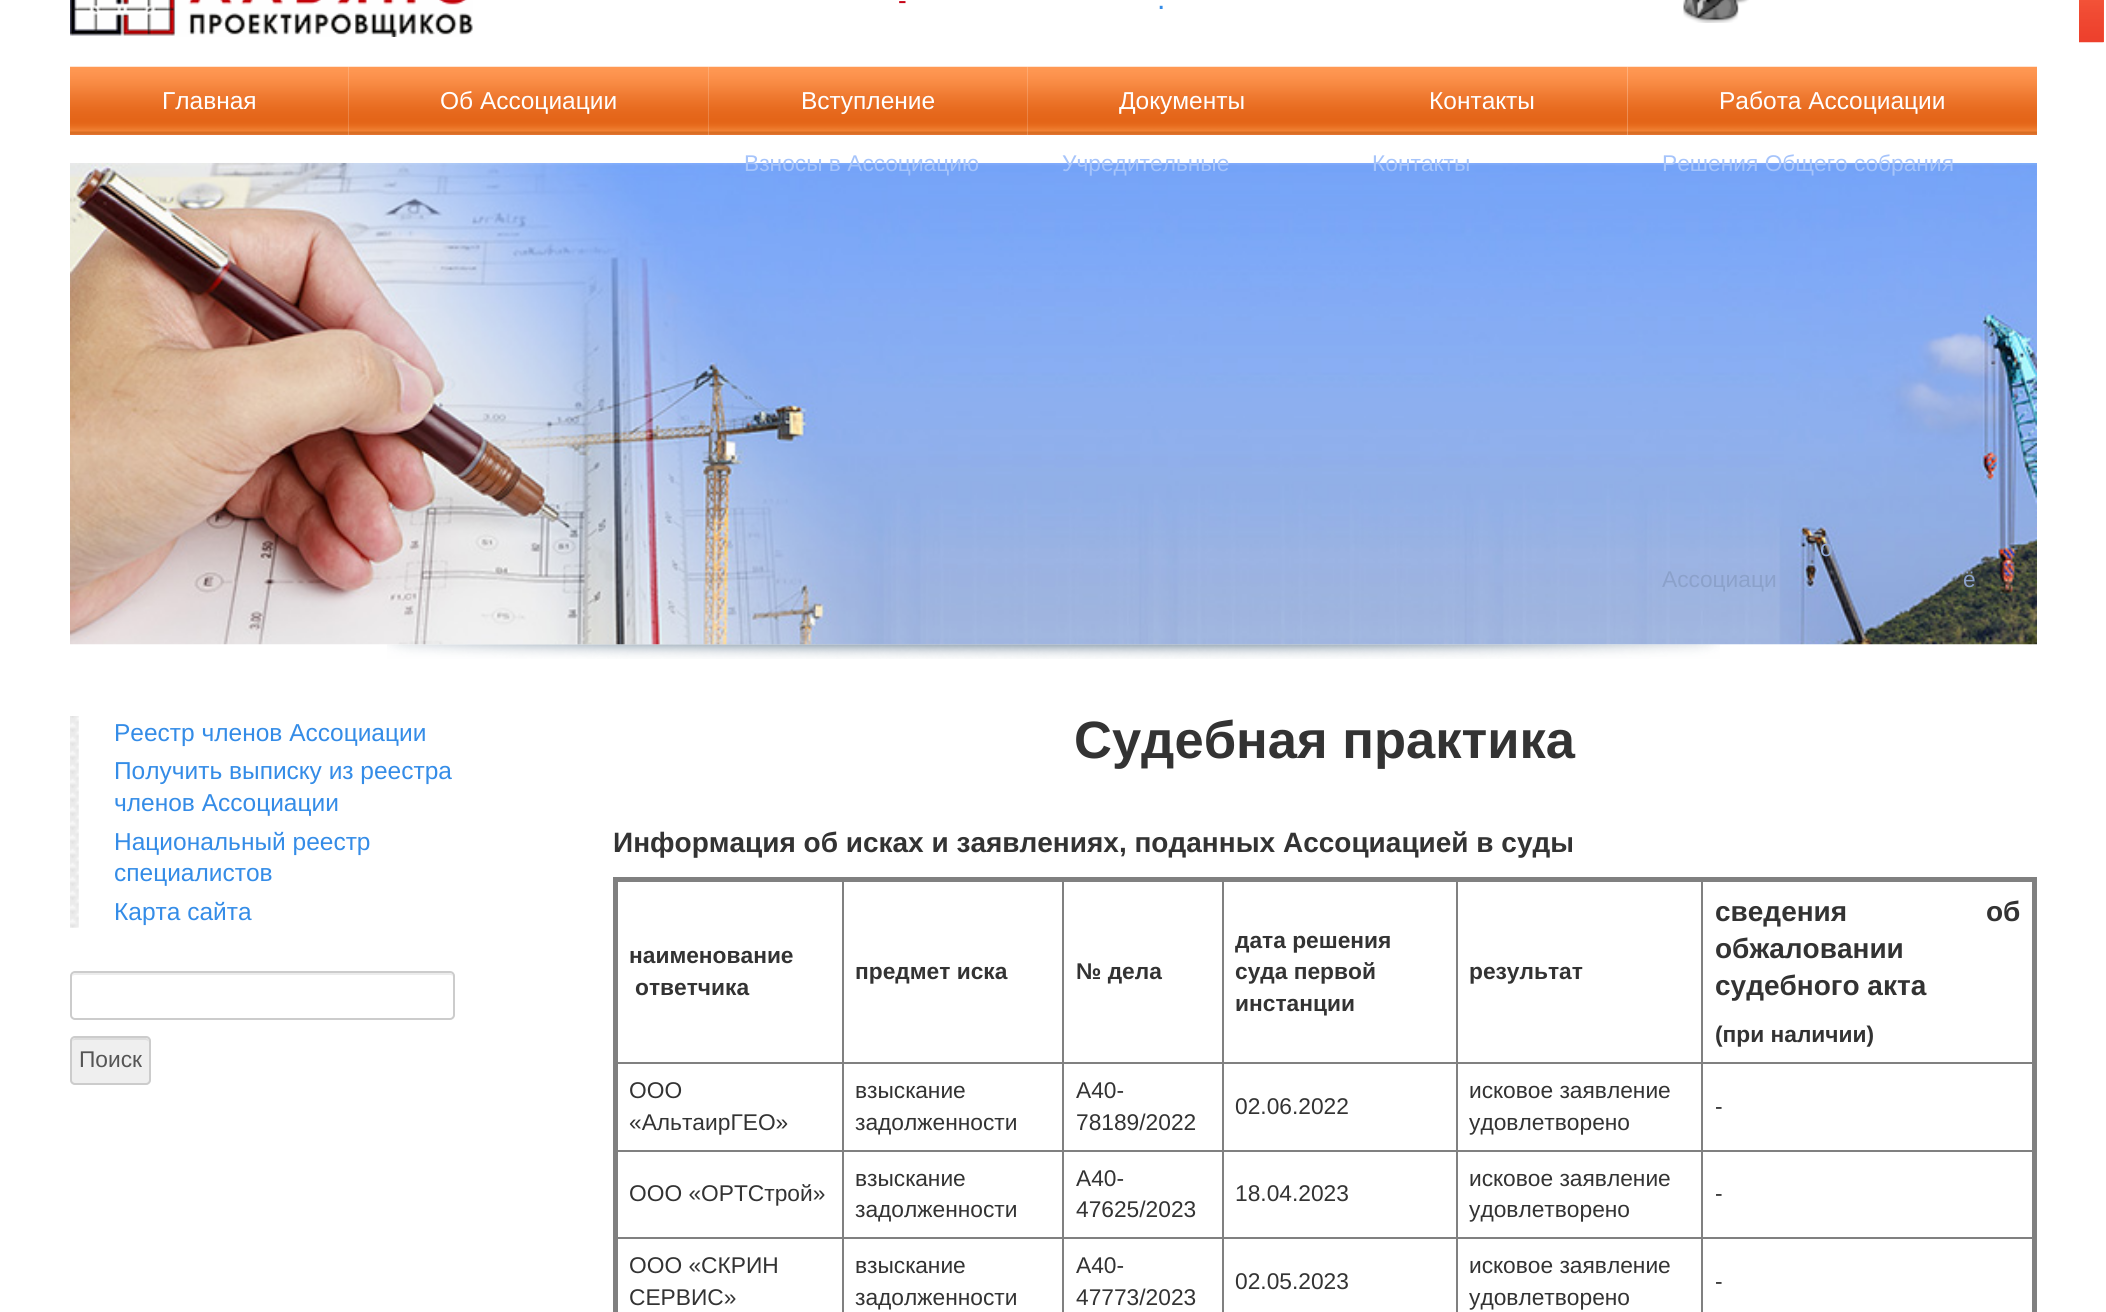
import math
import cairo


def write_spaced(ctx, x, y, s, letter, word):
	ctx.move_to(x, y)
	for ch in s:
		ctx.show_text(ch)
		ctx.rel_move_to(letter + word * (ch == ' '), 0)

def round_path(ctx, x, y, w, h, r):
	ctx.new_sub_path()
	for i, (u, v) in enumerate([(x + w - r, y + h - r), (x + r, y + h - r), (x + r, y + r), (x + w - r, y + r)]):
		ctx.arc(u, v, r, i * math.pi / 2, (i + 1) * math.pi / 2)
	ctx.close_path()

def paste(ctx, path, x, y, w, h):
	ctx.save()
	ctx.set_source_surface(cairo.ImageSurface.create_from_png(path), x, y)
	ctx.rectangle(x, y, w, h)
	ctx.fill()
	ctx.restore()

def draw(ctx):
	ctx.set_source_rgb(1, 1, 1)
	ctx.paint()
	paste(ctx, 'media/1.png', 387, 644, 1333, 15)
	paste(ctx, 'media/2.png', 70, 0, 403, 37)
	ctx.select_font_face('Liberation Sans')
	ctx.set_font_size(26)
	ctx.set_source_rgb(0.78, 0.02, 0.094)
	ctx.move_to(898, 9)
	ctx.show_text('-')
	ctx.set_font_size(30)
	ctx.set_source_rgb(0.204, 0.549, 0.906)
	ctx.move_to(1157, 9)
	ctx.show_text('.')
	paste(ctx, 'media/3.png', 1683, 0, 66, 23)
	ctx.set_source_rgb(0.957, 0.345, 0.235)
	ctx.rectangle(2103, 0, 1, 42)
	ctx.fill()
	paste(ctx, 'media/4.png', 2079, 0, 25, 43)
	paste(ctx, 'media/5.png', 70, 66, 279, 69)
	ctx.set_font_size(24.5)
	ctx.set_source_rgb(1, 1, 1)
	ctx.move_to(162, 109)
	ctx.show_text('Главная')
	paste(ctx, 'media/6.png', 348, 66, 361, 69)
	ctx.move_to(440, 109)
	ctx.show_text('Об Ассоциации')
	paste(ctx, 'media/7.png', 708, 66, 320, 69)
	ctx.move_to(801, 109)
	ctx.show_text('Вступление')
	paste(ctx, 'media/11.png', 70, 163, 1967, 482)
	ctx.set_font_size(22.75)
	ctx.set_source_rgb(0.651, 0.769, 0.984)
	ctx.move_to(744, 171)
	ctx.show_text('Взносы в Ассоциацию')
	paste(ctx, 'media/8.png', 1027, 66, 310, 69)
	ctx.set_font_size(24.5)
	ctx.set_source_rgb(1, 1, 1)
	ctx.move_to(1119, 109)
	ctx.show_text('Документы')
	ctx.set_font_size(22.75)
	ctx.set_source_rgb(0.651, 0.769, 0.984)
	ctx.move_to(1062, 171)
	ctx.show_text('Учредительные')
	paste(ctx, 'media/9.png', 1337, 66, 291, 69)
	ctx.set_font_size(24.5)
	ctx.set_source_rgb(1, 1, 1)
	ctx.move_to(1429, 109)
	ctx.show_text('Контакты')
	ctx.set_font_size(22.75)
	ctx.set_source_rgb(0.651, 0.769, 0.984)
	ctx.move_to(1372, 171)
	ctx.show_text('Контакты')
	paste(ctx, 'media/10.png', 1627, 66, 410, 69)
	ctx.set_font_size(24.5)
	ctx.set_source_rgb(1, 1, 1)
	ctx.move_to(1719, 109)
	ctx.show_text('Работа Ассоциации')
	ctx.set_font_size(22.75)
	ctx.set_source_rgb(0.651, 0.769, 0.984)
	ctx.move_to(1662, 171)
	ctx.show_text('Решения Общего собрания')
	ctx.set_source_rgb(0.569, 0.667, 0.851)
	ctx.move_to(1820, 556)
	ctx.show_text('о')
	ctx.set_source_rgb(0.545, 0.631, 0.792)
	ctx.move_to(1662, 587)
	ctx.show_text('Ассоциаци')
	ctx.move_to(1963, 587)
	ctx.show_text('ё')
	paste(ctx, 'media/12.png', 70, 716, 9, 212)
	ctx.set_font_size(24.5)
	ctx.set_source_rgb(0.204, 0.549, 0.906)
	for x, y, s in [
		(114, 741, 'Реестр членов Ассоциации'),
		(114, 779, 'Получить выписку из реестра'),
		(114, 811, 'членов Ассоциации'),
		(114, 850, 'Национальный реестр'),
		(114, 881, 'специалистов'),
		(114, 920, 'Карта сайта'),
	]:
		ctx.move_to(x, y)
		ctx.show_text(s)
	ctx.set_source_rgb(0.925, 0.925, 0.925)
	ctx.new_path()
	ctx.move_to(75, 975)
	ctx.line_to(450, 975)
	ctx.curve_to(452, 975, 453, 976, 453, 978)
	ctx.curve_to(453, 975, 452, 973, 449, 973)
	ctx.line_to(76, 973)
	ctx.curve_to(73, 973, 72, 975, 72, 978)
	ctx.curve_to(72, 976, 73, 975, 75, 975)
	ctx.close_path()
	ctx.fill()
	round_path(ctx, 71, 972, 383, 47, 4)
	ctx.set_source_rgb(0.8, 0.8, 0.8)
	ctx.stroke()
	ctx.set_source_rgb(0.937, 0.937, 0.937)
	round_path(ctx, 70, 1036, 81, 49, 5)
	ctx.fill()
	ctx.set_source_rgb(0.867, 0.867, 0.867)
	ctx.new_path()
	ctx.move_to(75, 1040)
	ctx.line_to(145, 1040)
	ctx.curve_to(147, 1040, 149, 1041, 149, 1043)
	ctx.curve_to(149, 1035, 138, 1038, 134, 1038)
	ctx.line_to(88, 1038)
	ctx.curve_to(83, 1038, 72, 1035, 72, 1043)
	ctx.curve_to(72, 1041, 73, 1040, 75, 1040)
	ctx.close_path()
	ctx.fill()
	round_path(ctx, 71, 1037, 79, 47, 4)
	ctx.set_source_rgb(0.8, 0.8, 0.8)
	ctx.stroke()
	ctx.set_font_size(22.75)
	ctx.set_source_rgb(0.333, 0.333, 0.333)
	ctx.move_to(79, 1067)
	ctx.show_text('Поиск')
	ctx.select_font_face('Liberation Sans', cairo.FONT_SLANT_NORMAL, cairo.FONT_WEIGHT_BOLD)
	ctx.set_font_size(52.5)
	ctx.set_source_rgb(0.2, 0.2, 0.2)
	ctx.move_to(1074, 758)
	ctx.show_text('Судебная практика')
	ctx.set_font_size(28)
	ctx.move_to(613, 852)
	ctx.show_text('Информация об исках и заявлениях, поданных Ассоциацией в суды')
	ctx.set_source_rgb(0.502, 0.502, 0.502)
	ctx.rectangle(1701, 1237, 2, 75)
	ctx.rectangle(1701, 1237, 334, 2)
	ctx.rectangle(1701, 1150, 2, 89)
	ctx.rectangle(1701, 1150, 334, 2)
	ctx.rectangle(1701, 1062, 2, 90)
	ctx.rectangle(1701, 1062, 334, 2)
	ctx.rectangle(1701, 879, 2, 185)
	ctx.rectangle(1456, 1237, 2, 75)
	ctx.rectangle(1456, 1237, 247, 2)
	ctx.rectangle(1456, 1150, 2, 89)
	ctx.rectangle(1456, 1150, 247, 2)
	ctx.rectangle(1456, 1062, 2, 90)
	ctx.rectangle(1456, 1062, 247, 2)
	ctx.rectangle(1456, 879, 2, 185)
	ctx.rectangle(1222, 1237, 2, 75)
	ctx.rectangle(1222, 1237, 236, 2)
	ctx.rectangle(1222, 1150, 2, 89)
	ctx.rectangle(1222, 1150, 236, 2)
	ctx.rectangle(1222, 1062, 2, 90)
	ctx.rectangle(1222, 1062, 236, 2)
	ctx.rectangle(1222, 879, 2, 185)
	ctx.rectangle(1062, 1237, 2, 75)
	ctx.rectangle(1062, 1237, 161, 2)
	ctx.rectangle(1062, 1150, 2, 89)
	ctx.rectangle(1062, 1150, 161, 2)
	ctx.rectangle(1062, 1062, 2, 90)
	ctx.rectangle(1062, 1062, 161, 2)
	ctx.rectangle(1062, 879, 2, 185)
	ctx.rectangle(842, 1237, 2, 75)
	ctx.rectangle(842, 1237, 222, 2)
	ctx.rectangle(842, 1150, 2, 89)
	ctx.rectangle(842, 1150, 222, 2)
	ctx.rectangle(842, 1062, 2, 90)
	ctx.rectangle(842, 1062, 222, 2)
	ctx.rectangle(842, 879, 2, 185)
	ctx.rectangle(613, 877, 1424, 5)
	ctx.rectangle(2032, 877, 5, 435)
	ctx.rectangle(614, 1062, 230, 2)
	ctx.rectangle(614, 1150, 230, 2)
	ctx.rectangle(614, 1237, 230, 2)
	ctx.rectangle(613, 877, 5, 435)
	ctx.fill()
	ctx.set_font_size(22.75)
	ctx.set_source_rgb(0.2, 0.2, 0.2)
	for x, y, s in [
		(629, 963, 'наименование'),
		(635, 995, 'ответчика'),
		(855, 979, 'предмет иска'),
		(1076, 979, '№ дела'),
		(1235, 948, 'дата решения'),
		(1235, 979, 'суда первой'),
		(1235, 1011, 'инстанции'),
		(1469, 979, 'результат'),
	]:
		ctx.move_to(x, y)
		ctx.show_text(s)
	ctx.set_font_size(28)
	write_spaced(ctx, 1715, 921, 'сведения об', 0, 131)
	ctx.move_to(1715, 958)
	ctx.show_text('обжаловании')
	ctx.move_to(1715, 995)
	ctx.show_text('судебного акта')
	ctx.set_font_size(22.75)
	ctx.move_to(1715, 1042)
	ctx.show_text('(при наличии)')
	ctx.select_font_face('Liberation Sans')
	for x, y, s in [
		(629, 1098, 'ООО'),
		(629, 1130, '«АльтаирГЕО»'),
		(855, 1098, 'взыскание'),
		(855, 1130, 'задолженности'),
		(1076, 1098, 'А40-'),
		(1076, 1130, '78189/2022'),
		(1235, 1114, '02.06.2022'),
		(1469, 1098, 'исковое заявление'),
		(1469, 1130, 'удовлетворено'),
		(1715, 1114, '-'),
		(629, 1201, 'ООО «ОРТСтрой»'),
		(855, 1186, 'взыскание'),
		(855, 1217, 'задолженности'),
		(1076, 1186, 'А40-'),
		(1076, 1217, '47625/2023'),
		(1235, 1201, '18.04.2023'),
		(1469, 1186, 'исковое заявление'),
		(1469, 1217, 'удовлетворено'),
		(1715, 1201, '-'),
		(629, 1273, 'ООО «СКРИН'),
		(629, 1305, 'СЕРВИС»'),
		(855, 1273, 'взыскание'),
		(855, 1305, 'задолженности'),
		(1076, 1273, 'А40-'),
		(1076, 1305, '47773/2023'),
		(1235, 1289, '02.05.2023'),
		(1469, 1273, 'исковое заявление'),
		(1469, 1305, 'удовлетворено'),
		(1715, 1289, '-'),
	]:
		ctx.move_to(x, y)
		ctx.show_text(s)


surface = cairo.ImageSurface(cairo.FORMAT_RGB24, 2106, 1312)
ctx = cairo.Context(surface)
options = cairo.FontOptions()
options.set_hint_metrics(cairo.HINT_METRICS_OFF)
options.set_hint_style(cairo.HINT_STYLE_NONE)
ctx.set_font_options(options)
ctx.set_miter_limit(4)
draw(ctx)
surface.write_to_png('image.png')
